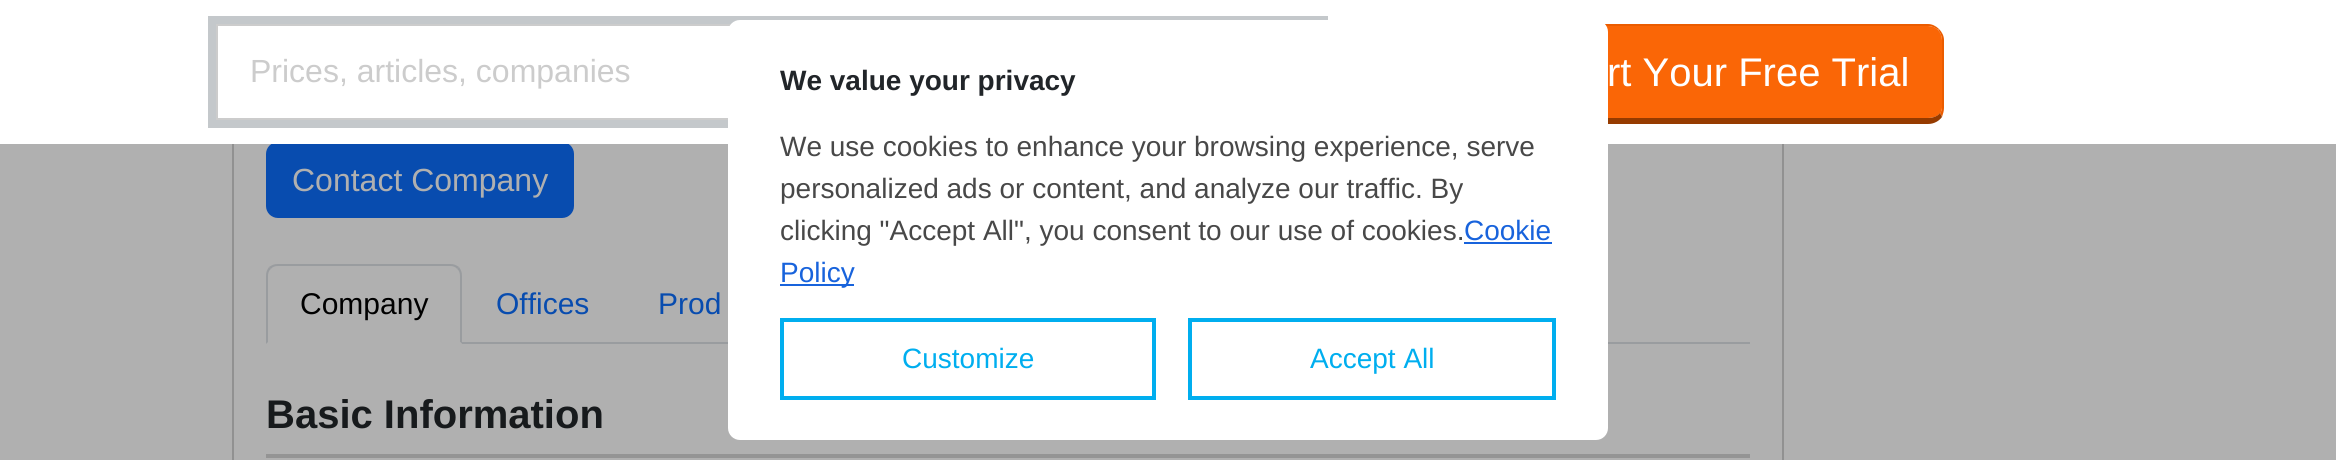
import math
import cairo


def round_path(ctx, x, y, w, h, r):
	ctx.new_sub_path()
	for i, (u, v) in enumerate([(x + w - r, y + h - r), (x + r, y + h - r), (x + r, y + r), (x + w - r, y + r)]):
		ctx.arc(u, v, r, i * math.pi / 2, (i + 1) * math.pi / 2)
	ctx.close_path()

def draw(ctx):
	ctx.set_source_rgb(0.69, 0.69, 0.69)
	ctx.paint()
	ctx.rectangle(233, 37, 1550, 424)
	ctx.set_source_rgb(0.569, 0.569, 0.569)
	ctx.stroke()
	ctx.set_source_rgb(0.035, 0.298, 0.686)
	round_path(ctx, 267, 143, 306, 74, 11)
	ctx.fill_preserve()
	ctx.stroke()
	ctx.set_source_rgb(1, 1, 1)
	ctx.rectangle(0, 0, 2336, 144)
	ctx.fill()
	ctx.rectangle(212, 20, 1112, 104)
	ctx.set_source_rgb(0.769, 0.784, 0.796)
	ctx.set_line_width(8)
	ctx.stroke()
	ctx.rectangle(217, 25, 1102, 94)
	ctx.set_source_rgb(0.8, 0.8, 0.8)
	ctx.set_line_width(2)
	ctx.stroke()
	ctx.select_font_face('Liberation Sans')
	ctx.set_font_size(32)
	ctx.move_to(250, 82)
	ctx.show_text('Prices, articles, companies')
	ctx.set_source_rgb(0.98, 0.4, 0.024)
	ctx.new_path()
	ctx.move_to(1528, 26)
	ctx.line_to(1928, 26)
	ctx.curve_to(1936, 26, 1942, 32, 1942, 40)
	ctx.line_to(1942, 108)
	ctx.curve_to(1942, 114, 1936, 118, 1928, 118)
	ctx.line_to(1528, 118)
	ctx.curve_to(1520, 118, 1514, 114, 1514, 108)
	ctx.line_to(1514, 40)
	ctx.curve_to(1514, 32, 1520, 26, 1528, 26)
	ctx.close_path()
	ctx.fill()
	ctx.set_source_rgb(0.918, 0.361, 0)
	ctx.new_path()
	ctx.move_to(1528, 24)
	ctx.curve_to(1524, 24, 1520, 26, 1517, 29)
	ctx.line_to(1518, 30)
	ctx.curve_to(1520, 28, 1524, 26, 1528, 26)
	ctx.line_to(1928, 26)
	ctx.curve_to(1932, 26, 1936, 28, 1938, 30)
	ctx.line_to(1939, 29)
	ctx.curve_to(1936, 26, 1932, 24, 1928, 24)
	ctx.close_path()
	ctx.fill()
	ctx.new_path()
	ctx.move_to(1944, 108)
	ctx.line_to(1944, 40)
	ctx.curve_to(1944, 36, 1942, 32, 1939, 29)
	ctx.line_to(1938, 30)
	ctx.curve_to(1940, 32, 1942, 36, 1942, 40)
	ctx.line_to(1942, 108)
	ctx.curve_to(1942, 110, 1941, 112, 1940, 113)
	ctx.line_to(1942, 117)
	ctx.curve_to(1943, 114, 1944, 111, 1944, 108)
	ctx.close_path()
	ctx.fill()
	ctx.set_source_rgb(0.588, 0.231, 0)
	ctx.new_path()
	ctx.move_to(1528, 124)
	ctx.line_to(1928, 124)
	ctx.curve_to(1934, 124, 1939, 121, 1942, 117)
	ctx.line_to(1940, 113)
	ctx.curve_to(1938, 116, 1933, 118, 1928, 118)
	ctx.line_to(1528, 118)
	ctx.curve_to(1523, 118, 1518, 116, 1516, 113)
	ctx.line_to(1514, 117)
	ctx.curve_to(1517, 121, 1522, 124, 1528, 124)
	ctx.close_path()
	ctx.fill()
	ctx.set_font_size(40)
	ctx.set_source_rgb(1, 1, 1)
	ctx.move_to(1607, 86)
	ctx.show_text('rt Your Free Trial')
	ctx.set_font_size(32)
	ctx.set_source_rgb(0.69, 0.69, 0.69)
	ctx.move_to(292, 191)
	ctx.show_text('Contact Company')
	ctx.set_source_rgb(0.6, 0.612, 0.624)
	ctx.rectangle(462, 342, 1288, 2)
	ctx.fill()
	ctx.new_path()
	ctx.move_to(278, 264)
	ctx.curve_to(274, 264, 272, 265, 269, 267)
	ctx.line_to(271, 269)
	ctx.curve_to(272, 267, 275, 266, 278, 266)
	ctx.line_to(450, 266)
	ctx.curve_to(453, 266, 456, 267, 457, 269)
	ctx.line_to(459, 267)
	ctx.curve_to(456, 265, 454, 264, 450, 264)
	ctx.close_path()
	ctx.fill()
	ctx.new_path()
	ctx.move_to(462, 344)
	ctx.line_to(462, 276)
	ctx.curve_to(462, 272, 461, 270, 459, 267)
	ctx.line_to(457, 269)
	ctx.curve_to(459, 270, 460, 273, 460, 276)
	ctx.line_to(460, 342)
	ctx.close_path()
	ctx.fill()
	ctx.set_source_rgb(0.69, 0.69, 0.69)
	ctx.new_path()
	ctx.move_to(462, 344)
	ctx.line_to(460, 342)
	ctx.line_to(268, 342)
	ctx.line_to(266, 344)
	ctx.close_path()
	ctx.fill()
	ctx.set_source_rgb(0.6, 0.612, 0.624)
	ctx.new_path()
	ctx.move_to(266, 344)
	ctx.line_to(268, 342)
	ctx.line_to(268, 276)
	ctx.curve_to(268, 273, 269, 270, 271, 269)
	ctx.line_to(269, 267)
	ctx.curve_to(267, 270, 266, 272, 266, 276)
	ctx.close_path()
	ctx.fill()
	ctx.set_font_size(30)
	ctx.set_source_rgb(0, 0, 0)
	ctx.move_to(300, 314)
	ctx.show_text('Company')
	ctx.set_source_rgb(0.035, 0.298, 0.686)
	ctx.move_to(496, 314)
	ctx.show_text('Offices')
	ctx.move_to(658, 314)
	ctx.show_text('Prod')
	ctx.select_font_face('Liberation Sans', cairo.FONT_SLANT_NORMAL, cairo.FONT_WEIGHT_BOLD)
	ctx.set_font_size(40)
	ctx.set_source_rgb(0.09, 0.102, 0.11)
	ctx.move_to(266, 428)
	ctx.show_text('Basic Information')
	ctx.set_source_rgb(0.58, 0.58, 0.58)
	ctx.rectangle(266, 454, 1484, 4)
	ctx.fill()
	ctx.set_source_rgb(1, 1, 1)
	round_path(ctx, 728, 20, 880, 420, 12)
	ctx.fill()
	ctx.set_font_size(28)
	ctx.set_source_rgb(0.129, 0.145, 0.161)
	ctx.move_to(780, 90)
	ctx.show_text('We value your privacy')
	ctx.select_font_face('Liberation Sans')
	ctx.set_source_rgb(0.282, 0.282, 0.282)
	for x, y, s in [
		(780, 156, 'We use cookies to enhance your browsing experience, serve'),
		(780, 198, 'personalized ads or content, and analyze our traffic. By'),
		(780, 240, 'clicking "Accept All", you consent to our use of cookies.'),
	]:
		ctx.move_to(x, y)
		ctx.show_text(s)
	ctx.set_source_rgb(0.094, 0.388, 0.863)
	ctx.move_to(1464, 240)
	ctx.show_text('Cookie')
	ctx.rectangle(1464, 242, 88, 2)
	ctx.fill()
	ctx.rectangle(780, 284, 74, 2)
	ctx.fill()
	ctx.move_to(780, 282)
	ctx.show_text('Policy')
	ctx.rectangle(782, 320, 372, 78)
	ctx.set_source_rgb(0, 0.682, 0.937)
	ctx.set_line_width(4)
	ctx.stroke()
	ctx.move_to(902, 368)
	ctx.show_text('Customize')
	ctx.rectangle(1190, 320, 364, 78)
	ctx.stroke()
	ctx.move_to(1310, 368)
	ctx.show_text('Accept All')


surface = cairo.ImageSurface(cairo.FORMAT_RGB24, 2336, 460)
ctx = cairo.Context(surface)
options = cairo.FontOptions()
options.set_hint_metrics(cairo.HINT_METRICS_OFF)
options.set_hint_style(cairo.HINT_STYLE_NONE)
ctx.set_font_options(options)
ctx.set_miter_limit(4)
draw(ctx)
surface.write_to_png('image.png')
